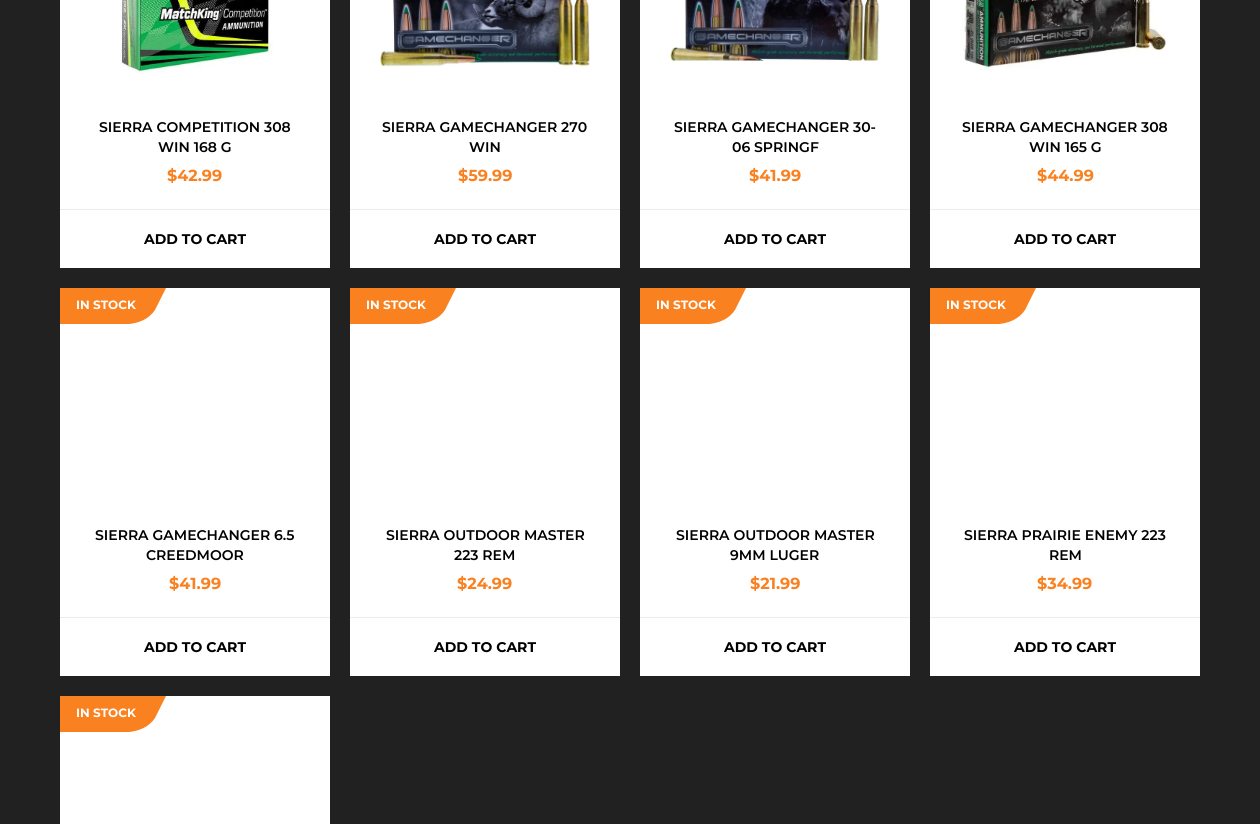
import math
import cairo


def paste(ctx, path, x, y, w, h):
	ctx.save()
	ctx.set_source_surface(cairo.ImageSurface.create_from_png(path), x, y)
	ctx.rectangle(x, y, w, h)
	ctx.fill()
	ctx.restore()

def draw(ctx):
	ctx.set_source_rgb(0.129, 0.129, 0.129)
	ctx.paint()
	ctx.set_source_rgb(1, 1, 1)
	ctx.rectangle(60, 0, 270, 268)
	ctx.fill()
	paste(ctx, 'media/1.png', 120, 0, 153, 73)
	ctx.select_font_face('Montserrat SemiBold')
	ctx.set_font_size(14)
	ctx.set_source_rgb(0, 0, 0)
	ctx.move_to(99, 132)
	ctx.show_text('SIERRA COMPETITION 308')
	ctx.move_to(158, 152)
	ctx.show_text('WIN 168 G')
	ctx.select_font_face('Montserrat', cairo.FONT_SLANT_NORMAL, cairo.FONT_WEIGHT_BOLD)
	ctx.set_font_size(16)
	ctx.set_source_rgb(0.976, 0.506, 0.125)
	ctx.move_to(167, 181)
	ctx.show_text('$42.99')
	ctx.set_source_rgb(0.922, 0.922, 0.922)
	ctx.rectangle(60, 209, 270, 1)
	ctx.fill()
	ctx.set_font_size(14)
	ctx.set_source_rgb(0, 0, 0)
	ctx.move_to(144, 244)
	ctx.show_text('ADD TO CART')
	ctx.set_source_rgb(1, 1, 1)
	ctx.rectangle(350, 0, 270, 268)
	ctx.fill()
	paste(ctx, 'media/2.png', 380, 0, 210, 67)
	ctx.select_font_face('Montserrat SemiBold')
	ctx.set_source_rgb(0, 0, 0)
	ctx.move_to(382, 132)
	ctx.show_text('SIERRA GAMECHANGER 270')
	ctx.move_to(469, 152)
	ctx.show_text('WIN')
	ctx.select_font_face('Montserrat', cairo.FONT_SLANT_NORMAL, cairo.FONT_WEIGHT_BOLD)
	ctx.set_font_size(16)
	ctx.set_source_rgb(0.976, 0.506, 0.125)
	ctx.move_to(458, 181)
	ctx.show_text('$59.99')
	ctx.set_source_rgb(0.922, 0.922, 0.922)
	ctx.rectangle(350, 209, 270, 1)
	ctx.fill()
	ctx.set_font_size(14)
	ctx.set_source_rgb(0, 0, 0)
	ctx.move_to(434, 244)
	ctx.show_text('ADD TO CART')
	ctx.set_source_rgb(1, 1, 1)
	ctx.rectangle(640, 0, 270, 268)
	ctx.fill()
	paste(ctx, 'media/3.png', 670, 0, 210, 61)
	ctx.select_font_face('Montserrat SemiBold')
	ctx.set_source_rgb(0, 0, 0)
	ctx.move_to(674, 132)
	ctx.show_text('SIERRA GAMECHANGER 30-')
	ctx.move_to(732, 152)
	ctx.show_text('06 SPRINGF')
	ctx.select_font_face('Montserrat', cairo.FONT_SLANT_NORMAL, cairo.FONT_WEIGHT_BOLD)
	ctx.set_font_size(16)
	ctx.set_source_rgb(0.976, 0.506, 0.125)
	ctx.move_to(749, 181)
	ctx.show_text('$41.99')
	ctx.set_source_rgb(0.922, 0.922, 0.922)
	ctx.rectangle(640, 209, 270, 1)
	ctx.fill()
	ctx.set_font_size(14)
	ctx.set_source_rgb(0, 0, 0)
	ctx.move_to(724, 244)
	ctx.show_text('ADD TO CART')
	ctx.set_source_rgb(1, 1, 1)
	ctx.rectangle(930, 0, 270, 268)
	ctx.fill()
	paste(ctx, 'media/4.png', 960, 0, 206, 70)
	ctx.select_font_face('Montserrat SemiBold')
	ctx.set_source_rgb(0, 0, 0)
	ctx.move_to(962, 132)
	ctx.show_text('SIERRA GAMECHANGER 308')
	ctx.move_to(1029, 152)
	ctx.show_text('WIN 165 G')
	ctx.select_font_face('Montserrat', cairo.FONT_SLANT_NORMAL, cairo.FONT_WEIGHT_BOLD)
	ctx.set_font_size(16)
	ctx.set_source_rgb(0.976, 0.506, 0.125)
	ctx.move_to(1037, 181)
	ctx.show_text('$44.99')
	ctx.set_source_rgb(0.922, 0.922, 0.922)
	ctx.rectangle(930, 209, 270, 1)
	ctx.fill()
	ctx.set_font_size(14)
	ctx.set_source_rgb(0, 0, 0)
	ctx.move_to(1014, 244)
	ctx.show_text('ADD TO CART')
	ctx.set_source_rgb(1, 1, 1)
	ctx.rectangle(60, 288, 270, 388)
	ctx.fill()
	ctx.save()
	ctx.rectangle(60, 288, 106, 36)
	ctx.clip()
	ctx.set_source_rgb(0.98, 0.506, 0.125)
	ctx.set_fill_rule(cairo.FILL_RULE_EVEN_ODD)
	ctx.new_path()
	ctx.move_to(-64, 288)
	ctx.line_to(166, 288)
	ctx.line_to(155, 310)
	ctx.curve_to(142, 329, 116, 324, 97, 324)
	ctx.line_to(-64, 324)
	ctx.close_path()
	ctx.fill()
	ctx.restore()
	ctx.set_font_size(12)
	ctx.move_to(76, 309)
	ctx.show_text('IN STOCK')
	ctx.select_font_face('Montserrat SemiBold')
	ctx.set_font_size(14)
	ctx.set_source_rgb(0, 0, 0)
	ctx.move_to(95, 540)
	ctx.show_text('SIERRA GAMECHANGER 6.5')
	ctx.move_to(146, 560)
	ctx.show_text('CREEDMOOR')
	ctx.select_font_face('Montserrat', cairo.FONT_SLANT_NORMAL, cairo.FONT_WEIGHT_BOLD)
	ctx.set_font_size(16)
	ctx.set_source_rgb(0.976, 0.506, 0.125)
	ctx.move_to(169, 589)
	ctx.show_text('$41.99')
	ctx.set_source_rgb(0.922, 0.922, 0.922)
	ctx.rectangle(60, 617, 270, 1)
	ctx.fill()
	ctx.set_font_size(14)
	ctx.set_source_rgb(0, 0, 0)
	ctx.move_to(144, 652)
	ctx.show_text('ADD TO CART')
	ctx.set_source_rgb(1, 1, 1)
	ctx.rectangle(350, 288, 270, 388)
	ctx.fill()
	ctx.save()
	ctx.rectangle(350, 288, 106, 36)
	ctx.clip()
	ctx.set_source_rgb(0.98, 0.506, 0.125)
	ctx.set_fill_rule(cairo.FILL_RULE_EVEN_ODD)
	ctx.new_path()
	ctx.move_to(226, 288)
	ctx.line_to(456, 288)
	ctx.line_to(445, 310)
	ctx.curve_to(432, 329, 406, 324, 387, 324)
	ctx.line_to(226, 324)
	ctx.close_path()
	ctx.fill()
	ctx.restore()
	ctx.set_font_size(12)
	ctx.move_to(366, 309)
	ctx.show_text('IN STOCK')
	ctx.select_font_face('Montserrat SemiBold')
	ctx.set_font_size(14)
	ctx.set_source_rgb(0, 0, 0)
	ctx.move_to(386, 540)
	ctx.show_text('SIERRA OUTDOOR MASTER')
	ctx.move_to(454, 560)
	ctx.show_text('223 REM')
	ctx.select_font_face('Montserrat', cairo.FONT_SLANT_NORMAL, cairo.FONT_WEIGHT_BOLD)
	ctx.set_font_size(16)
	ctx.set_source_rgb(0.976, 0.506, 0.125)
	ctx.move_to(457, 589)
	ctx.show_text('$24.99')
	ctx.set_source_rgb(0.922, 0.922, 0.922)
	ctx.rectangle(350, 617, 270, 1)
	ctx.fill()
	ctx.set_font_size(14)
	ctx.set_source_rgb(0, 0, 0)
	ctx.move_to(434, 652)
	ctx.show_text('ADD TO CART')
	ctx.set_source_rgb(1, 1, 1)
	ctx.rectangle(640, 288, 270, 388)
	ctx.fill()
	ctx.save()
	ctx.rectangle(640, 288, 106, 36)
	ctx.clip()
	ctx.set_source_rgb(0.98, 0.506, 0.125)
	ctx.set_fill_rule(cairo.FILL_RULE_EVEN_ODD)
	ctx.new_path()
	ctx.move_to(516, 288)
	ctx.line_to(746, 288)
	ctx.line_to(735, 310)
	ctx.curve_to(722, 329, 696, 324, 677, 324)
	ctx.line_to(516, 324)
	ctx.close_path()
	ctx.fill()
	ctx.restore()
	ctx.set_font_size(12)
	ctx.move_to(656, 309)
	ctx.show_text('IN STOCK')
	ctx.select_font_face('Montserrat SemiBold')
	ctx.set_font_size(14)
	ctx.set_source_rgb(0, 0, 0)
	ctx.move_to(676, 540)
	ctx.show_text('SIERRA OUTDOOR MASTER')
	ctx.move_to(730, 560)
	ctx.show_text('9MM LUGER')
	ctx.select_font_face('Montserrat', cairo.FONT_SLANT_NORMAL, cairo.FONT_WEIGHT_BOLD)
	ctx.set_font_size(16)
	ctx.set_source_rgb(0.976, 0.506, 0.125)
	ctx.move_to(750, 589)
	ctx.show_text('$21.99')
	ctx.set_source_rgb(0.922, 0.922, 0.922)
	ctx.rectangle(640, 617, 270, 1)
	ctx.fill()
	ctx.set_font_size(14)
	ctx.set_source_rgb(0, 0, 0)
	ctx.move_to(724, 652)
	ctx.show_text('ADD TO CART')
	ctx.set_source_rgb(1, 1, 1)
	ctx.rectangle(930, 288, 270, 388)
	ctx.fill()
	ctx.save()
	ctx.rectangle(930, 288, 106, 36)
	ctx.clip()
	ctx.set_source_rgb(0.98, 0.506, 0.125)
	ctx.set_fill_rule(cairo.FILL_RULE_EVEN_ODD)
	ctx.new_path()
	ctx.move_to(806, 288)
	ctx.line_to(1036, 288)
	ctx.line_to(1025, 310)
	ctx.curve_to(1012, 329, 986, 324, 967, 324)
	ctx.line_to(806, 324)
	ctx.close_path()
	ctx.fill()
	ctx.restore()
	ctx.set_font_size(12)
	ctx.move_to(946, 309)
	ctx.show_text('IN STOCK')
	ctx.select_font_face('Montserrat SemiBold')
	ctx.set_font_size(14)
	ctx.set_source_rgb(0, 0, 0)
	ctx.move_to(964, 540)
	ctx.show_text('SIERRA PRAIRIE ENEMY 223')
	ctx.move_to(1049, 560)
	ctx.show_text('REM')
	ctx.select_font_face('Montserrat', cairo.FONT_SLANT_NORMAL, cairo.FONT_WEIGHT_BOLD)
	ctx.set_font_size(16)
	ctx.set_source_rgb(0.976, 0.506, 0.125)
	ctx.move_to(1037, 589)
	ctx.show_text('$34.99')
	ctx.set_source_rgb(0.922, 0.922, 0.922)
	ctx.rectangle(930, 617, 270, 1)
	ctx.fill()
	ctx.set_font_size(14)
	ctx.set_source_rgb(0, 0, 0)
	ctx.move_to(1014, 652)
	ctx.show_text('ADD TO CART')
	ctx.set_source_rgb(1, 1, 1)
	ctx.rectangle(60, 696, 270, 128)
	ctx.fill()
	ctx.save()
	ctx.rectangle(60, 696, 106, 36)
	ctx.clip()
	ctx.set_source_rgb(0.98, 0.506, 0.125)
	ctx.set_fill_rule(cairo.FILL_RULE_EVEN_ODD)
	ctx.new_path()
	ctx.move_to(-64, 696)
	ctx.line_to(166, 696)
	ctx.line_to(155, 718)
	ctx.curve_to(142, 737, 116, 732, 97, 732)
	ctx.line_to(-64, 732)
	ctx.close_path()
	ctx.fill()
	ctx.restore()
	ctx.set_font_size(12)
	ctx.move_to(76, 717)
	ctx.show_text('IN STOCK')


surface = cairo.ImageSurface(cairo.FORMAT_RGB24, 1260, 824)
ctx = cairo.Context(surface)
options = cairo.FontOptions()
options.set_hint_metrics(cairo.HINT_METRICS_OFF)
options.set_hint_style(cairo.HINT_STYLE_NONE)
ctx.set_font_options(options)
ctx.set_miter_limit(4)
draw(ctx)
surface.write_to_png('image.png')
